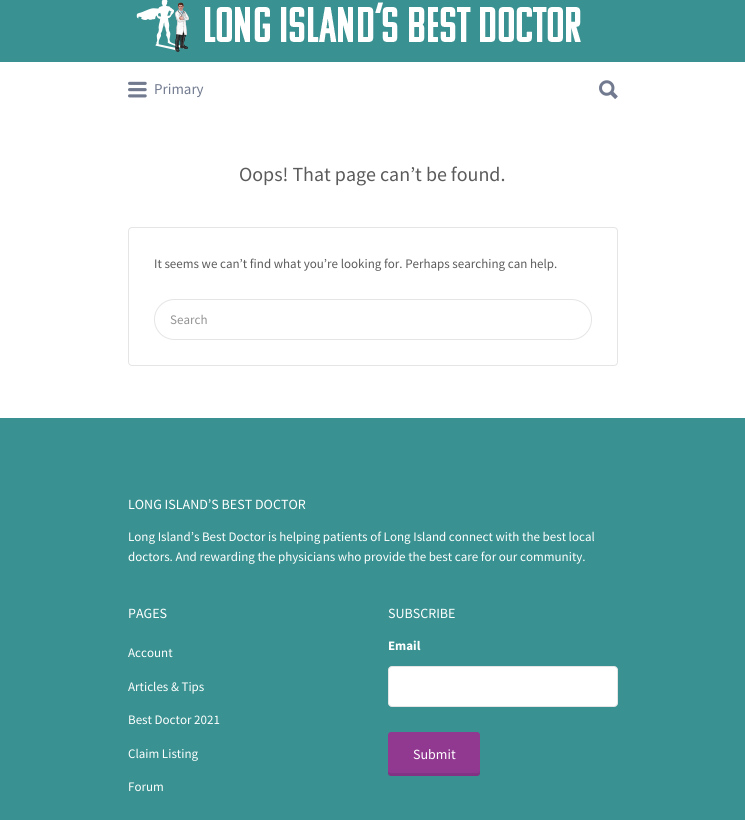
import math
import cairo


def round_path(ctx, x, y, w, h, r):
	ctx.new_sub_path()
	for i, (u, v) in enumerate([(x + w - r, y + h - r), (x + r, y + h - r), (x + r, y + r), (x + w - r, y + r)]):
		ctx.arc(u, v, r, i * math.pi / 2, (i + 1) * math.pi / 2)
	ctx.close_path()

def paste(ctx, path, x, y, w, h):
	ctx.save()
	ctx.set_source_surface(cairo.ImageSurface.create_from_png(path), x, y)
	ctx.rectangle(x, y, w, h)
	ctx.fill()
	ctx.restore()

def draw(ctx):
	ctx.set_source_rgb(1, 1, 1)
	ctx.paint()
	ctx.set_source_rgb(0.224, 0.569, 0.569)
	ctx.rectangle(0, 0, 745, 62)
	ctx.fill()
	paste(ctx, 'media/1.png', 136, 0, 445, 52)
	paste(ctx, 'media/2.png', 128, 81, 19, 17)
	ctx.select_font_face('Source Sans Pro')
	ctx.set_font_size(15)
	ctx.set_source_rgb(0.443, 0.478, 0.561)
	ctx.move_to(154, 94)
	ctx.show_text('Primary')
	paste(ctx, 'media/3.png', 599, 80, 19, 19)
	ctx.set_font_size(20)
	ctx.set_source_rgb(0.357, 0.357, 0.357)
	ctx.move_to(239, 181)
	ctx.show_text('Oops! That page can’t be found.')
	round_path(ctx, 128.5, 227.5, 489, 138, 3.5)
	ctx.set_source_rgb(0.898, 0.898, 0.898)
	ctx.set_line_width(1)
	ctx.stroke()
	ctx.set_font_size(13)
	ctx.set_source_rgb(0.357, 0.357, 0.357)
	ctx.move_to(154, 268)
	ctx.show_text('It seems we can’t find what you’re looking for. Perhaps searching can help.')
	round_path(ctx, 154.5, 299.5, 437, 40, 20)
	ctx.set_source_rgb(0.898, 0.898, 0.898)
	ctx.stroke()
	ctx.set_source_rgb(0.576, 0.576, 0.576)
	ctx.move_to(170, 324)
	ctx.show_text('Search')
	ctx.set_source_rgb(0.224, 0.569, 0.569)
	ctx.rectangle(0, 418, 745, 402)
	ctx.fill()
	ctx.set_font_size(14)
	ctx.set_source_rgb(1, 1, 1)
	ctx.move_to(128, 509)
	ctx.show_text('LONG ISLAND’S BEST DOCTOR')
	ctx.set_font_size(13)
	ctx.move_to(128, 541)
	ctx.show_text('Long Island’s Best Doctor is helping patients of Long Island connect with the best local')
	ctx.move_to(128, 561)
	ctx.show_text('doctors. And rewarding the physicians who provide the best care for our community.')
	ctx.set_font_size(14)
	ctx.move_to(128, 618)
	ctx.show_text('PAGES')
	ctx.set_font_size(13)
	for x, y, s in [
		(128, 657, 'Account'),
		(128, 691, 'Articles & Tips'),
		(128, 724, 'Best Doctor 2021'),
		(128, 758, 'Claim Listing'),
		(128, 791, 'Forum'),
	]:
		ctx.move_to(x, y)
		ctx.show_text(s)
	ctx.set_font_size(14)
	ctx.move_to(388, 618)
	ctx.show_text('SUBSCRIBE')
	ctx.select_font_face('Source Sans Pro', cairo.FONT_SLANT_NORMAL, cairo.FONT_WEIGHT_BOLD)
	ctx.set_font_size(13)
	ctx.move_to(388, 650)
	ctx.show_text('Email')
	round_path(ctx, 388.5, 666.5, 229, 40, 3.5)
	ctx.fill_preserve()
	ctx.set_source_rgb(0.898, 0.898, 0.898)
	ctx.stroke()
	ctx.set_source_rgb(0.569, 0.224, 0.569)
	round_path(ctx, 388, 732, 92, 44, 3)
	ctx.fill()
	ctx.set_source_rgba(0, 0, 0, 0.1)
	ctx.new_path()
	ctx.move_to(388, 770)
	ctx.line_to(388, 773)
	ctx.curve_to(388, 775, 389, 776, 391, 776)
	ctx.line_to(477, 776)
	ctx.curve_to(479, 776, 480, 775, 480, 773)
	ctx.line_to(480, 770)
	ctx.curve_to(480, 772, 479, 773, 477, 773)
	ctx.line_to(391, 773)
	ctx.curve_to(389, 773, 388, 772, 388, 770)
	ctx.close_path()
	ctx.fill()
	ctx.select_font_face('Source Sans Pro')
	ctx.set_font_size(14)
	ctx.set_source_rgb(1, 1, 1)
	ctx.move_to(413, 759)
	ctx.show_text('Submit')


surface = cairo.ImageSurface(cairo.FORMAT_RGB24, 745, 820)
ctx = cairo.Context(surface)
options = cairo.FontOptions()
options.set_hint_metrics(cairo.HINT_METRICS_OFF)
options.set_hint_style(cairo.HINT_STYLE_NONE)
ctx.set_font_options(options)
ctx.set_miter_limit(4)
draw(ctx)
surface.write_to_png('image.png')
